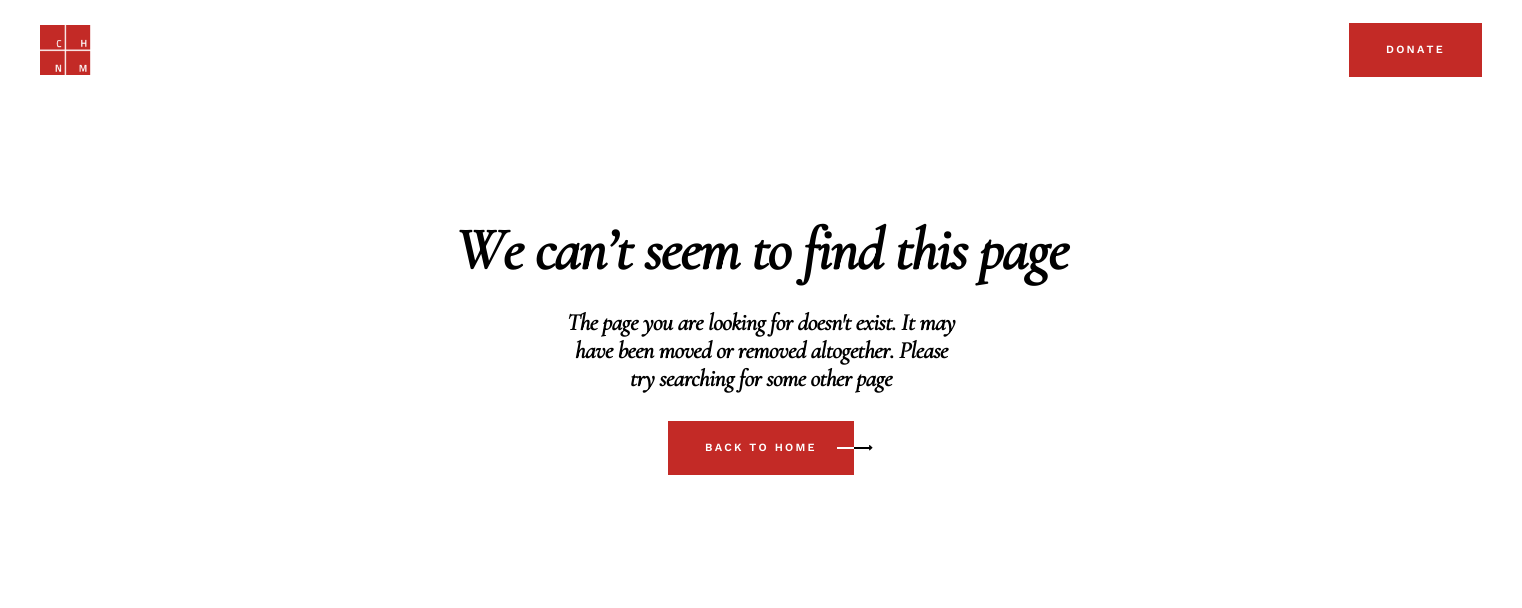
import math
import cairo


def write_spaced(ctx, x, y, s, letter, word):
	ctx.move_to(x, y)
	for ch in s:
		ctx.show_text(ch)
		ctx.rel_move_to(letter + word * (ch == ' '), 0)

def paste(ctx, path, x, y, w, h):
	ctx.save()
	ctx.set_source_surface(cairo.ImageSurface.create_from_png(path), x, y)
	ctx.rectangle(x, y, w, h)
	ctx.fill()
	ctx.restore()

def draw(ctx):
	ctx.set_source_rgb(1, 1, 1)
	ctx.paint()
	paste(ctx, 'media/1.png', 40, 25, 51, 50)
	ctx.set_source_rgb(0.765, 0.165, 0.149)
	ctx.rectangle(1349, 23, 133, 54)
	ctx.fill()
	ctx.select_font_face('Work Sans SemiBold')
	ctx.set_font_size(11)
	ctx.set_source_rgb(1, 1, 1)
	write_spaced(ctx, 1386, 53, 'DONATE', 2.25, 0)
	ctx.select_font_face('Cormorant', cairo.FONT_SLANT_ITALIC, cairo.FONT_WEIGHT_BOLD)
	ctx.set_font_size(60)
	ctx.set_source_rgb(0, 0, 0)
	write_spaced(ctx, 455, 269, 'We can’t seem to find this page', -1.5, 0)
	ctx.set_font_size(24)
	for x, y, s in [
		(567, 330, 'The page you are looking for doesn\'t exist. It may'),
		(575, 358, 'have been moved or removed altogether. Please'),
		(630, 386, 'try searching for some other page'),
	]:
		write_spaced(ctx, x, y, s, -0.6, 0)
	ctx.set_source_rgb(0.765, 0.165, 0.149)
	ctx.rectangle(668, 421, 186, 54)
	ctx.fill()
	ctx.select_font_face('Work Sans SemiBold')
	ctx.set_font_size(11)
	ctx.set_source_rgb(1, 1, 1)
	write_spaced(ctx, 705, 451, 'BACK TO HOME', 2.25, 0)
	paste(ctx, 'media/2.png', 869, 445, 4, 6)
	ctx.rectangle(837, 447, 17, 2)
	ctx.fill()
	ctx.set_source_rgb(0, 0, 0)
	ctx.rectangle(854, 447, 17, 2)
	ctx.fill()


surface = cairo.ImageSurface(cairo.FORMAT_RGB24, 1522, 608)
ctx = cairo.Context(surface)
options = cairo.FontOptions()
options.set_hint_metrics(cairo.HINT_METRICS_OFF)
options.set_hint_style(cairo.HINT_STYLE_NONE)
ctx.set_font_options(options)
ctx.set_miter_limit(4)
draw(ctx)
surface.write_to_png('image.png')
